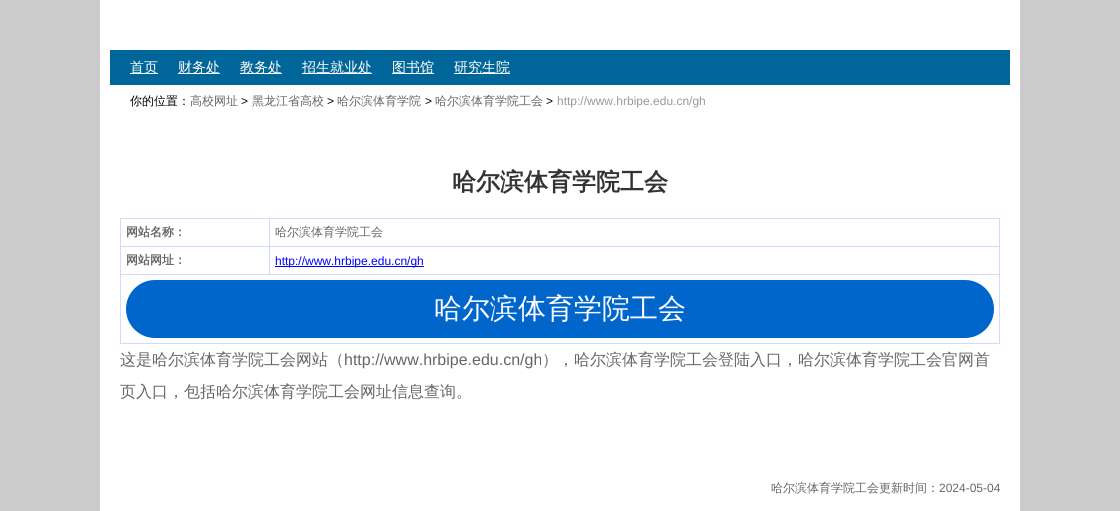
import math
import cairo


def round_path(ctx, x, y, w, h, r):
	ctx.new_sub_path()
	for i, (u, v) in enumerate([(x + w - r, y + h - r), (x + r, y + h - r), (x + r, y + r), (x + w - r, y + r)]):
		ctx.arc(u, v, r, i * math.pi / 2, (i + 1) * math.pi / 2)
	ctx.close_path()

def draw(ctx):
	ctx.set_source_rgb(0.8, 0.8, 0.8)
	ctx.paint()
	ctx.set_source_rgb(1, 1, 1)
	ctx.rectangle(100, 0, 920, 511)
	ctx.fill()
	ctx.set_source_rgb(0, 0.4, 0.6)
	ctx.rectangle(110, 50, 900, 35)
	ctx.fill()
	ctx.set_source_rgb(1, 1, 1)
	ctx.rectangle(130, 73, 28, 1)
	ctx.fill()
	ctx.select_font_face('WenQuanYi Zen Hei Medium')
	ctx.set_font_size(14)
	ctx.move_to(130, 72)
	ctx.show_text('首页')
	ctx.rectangle(178, 73, 42, 1)
	ctx.fill()
	ctx.move_to(178, 72)
	ctx.show_text('财务处')
	ctx.rectangle(240, 73, 42, 1)
	ctx.fill()
	ctx.move_to(240, 72)
	ctx.show_text('教务处')
	ctx.rectangle(302, 73, 70, 1)
	ctx.fill()
	ctx.move_to(302, 72)
	ctx.show_text('招生就业处')
	ctx.rectangle(392, 73, 42, 1)
	ctx.fill()
	ctx.move_to(392, 72)
	ctx.show_text('图书馆')
	ctx.rectangle(454, 73, 56, 1)
	ctx.fill()
	ctx.move_to(454, 72)
	ctx.show_text('研究生院')
	ctx.set_font_size(12)
	ctx.set_source_rgb(0, 0, 0)
	ctx.move_to(130, 105)
	ctx.show_text('你的位置：')
	ctx.set_source_rgb(0.4, 0.4, 0.4)
	ctx.move_to(190, 105)
	ctx.show_text('高校网址')
	ctx.select_font_face('Liberation Sans')
	ctx.set_source_rgb(0, 0, 0)
	ctx.move_to(241, 105)
	ctx.show_text('>')
	ctx.select_font_face('WenQuanYi Zen Hei Medium')
	ctx.set_source_rgb(0.4, 0.4, 0.4)
	ctx.move_to(252, 105)
	ctx.show_text('黑龙江省高校')
	ctx.select_font_face('Liberation Sans')
	ctx.set_source_rgb(0, 0, 0)
	ctx.move_to(327, 105)
	ctx.show_text('>')
	ctx.select_font_face('WenQuanYi Zen Hei Medium')
	ctx.set_source_rgb(0.4, 0.4, 0.4)
	ctx.move_to(337, 105)
	ctx.show_text('哈尔滨体育学院')
	ctx.select_font_face('Liberation Sans')
	ctx.set_source_rgb(0, 0, 0)
	ctx.move_to(425, 105)
	ctx.show_text('>')
	ctx.select_font_face('WenQuanYi Zen Hei Medium')
	ctx.set_source_rgb(0.4, 0.4, 0.4)
	ctx.move_to(435, 105)
	ctx.show_text('哈尔滨体育学院工会')
	ctx.select_font_face('Liberation Sans')
	ctx.set_source_rgb(0, 0, 0)
	ctx.move_to(546, 105)
	ctx.show_text('>')
	ctx.set_source_rgb(0.6, 0.6, 0.6)
	ctx.move_to(557, 105)
	ctx.show_text('http://www.hrbipe.edu.cn/gh')
	ctx.select_font_face('WenQuanYi Zen Hei', cairo.FONT_SLANT_NORMAL, cairo.FONT_WEIGHT_BOLD)
	ctx.set_font_size(24)
	ctx.set_source_rgb(0.2, 0.2, 0.2)
	ctx.move_to(452, 190)
	ctx.show_text('哈尔滨体育学院工会')
	ctx.set_source_rgb(0.816, 0.863, 0.976)
	ctx.rectangle(999, 218, 1, 126)
	ctx.rectangle(120, 343, 880, 1)
	ctx.rectangle(120, 218, 879, 1)
	ctx.rectangle(120, 218, 1, 28)
	ctx.fill()
	ctx.set_font_size(12)
	ctx.set_source_rgb(0.4, 0.4, 0.4)
	ctx.move_to(126, 236)
	ctx.show_text('网站名称：')
	ctx.set_source_rgb(0.816, 0.863, 0.976)
	ctx.rectangle(269, 218, 1, 28)
	ctx.fill()
	ctx.select_font_face('WenQuanYi Zen Hei Medium')
	ctx.set_source_rgb(0.4, 0.4, 0.4)
	ctx.move_to(275, 236)
	ctx.show_text('哈尔滨体育学院工会')
	ctx.set_source_rgb(0.816, 0.863, 0.976)
	ctx.rectangle(120, 246, 879, 1)
	ctx.fill()
	ctx.rectangle(120, 246, 1, 28)
	ctx.fill()
	ctx.select_font_face('WenQuanYi Zen Hei', cairo.FONT_SLANT_NORMAL, cairo.FONT_WEIGHT_BOLD)
	ctx.set_source_rgb(0.4, 0.4, 0.4)
	ctx.move_to(126, 264)
	ctx.show_text('网站网址：')
	ctx.set_source_rgb(0.816, 0.863, 0.976)
	ctx.rectangle(269, 246, 1, 28)
	ctx.fill()
	ctx.set_source_rgb(0, 0, 1)
	ctx.rectangle(275, 266, 149, 1)
	ctx.fill()
	ctx.select_font_face('Liberation Sans')
	ctx.move_to(275, 265)
	ctx.show_text('http://www.hrbipe.edu.cn/gh')
	ctx.set_source_rgb(0.816, 0.863, 0.976)
	ctx.rectangle(120, 274, 879, 1)
	ctx.fill()
	ctx.rectangle(120, 274, 1, 69)
	ctx.fill()
	ctx.set_source_rgb(0, 0.4, 0.8)
	round_path(ctx, 126, 280, 868, 58, 29)
	ctx.fill()
	ctx.select_font_face('WenQuanYi Zen Hei Medium')
	ctx.set_font_size(28)
	ctx.set_source_rgb(1, 1, 1)
	ctx.move_to(434, 318)
	ctx.show_text('哈尔滨体育学院工会')
	ctx.set_font_size(16)
	ctx.set_source_rgb(0.4, 0.4, 0.4)
	ctx.move_to(120, 365)
	ctx.show_text('这是哈尔滨体育学院工会网站（')
	ctx.select_font_face('Liberation Sans')
	ctx.move_to(344, 365)
	ctx.show_text('http://www.hrbipe.edu.cn/gh')
	ctx.select_font_face('WenQuanYi Zen Hei Medium')
	ctx.move_to(542, 365)
	ctx.show_text('），哈尔滨体育学院工会登陆入口，哈尔滨体育学院工会官网首')
	ctx.move_to(120, 397)
	ctx.show_text('页入口，包括哈尔滨体育学院工会网址信息查询。')
	ctx.set_font_size(12)
	ctx.move_to(771, 492)
	ctx.show_text('哈尔滨体育学院工会更新时间：')
	ctx.select_font_face('Liberation Sans')
	ctx.move_to(939, 492)
	ctx.show_text('2024-05-04')


surface = cairo.ImageSurface(cairo.FORMAT_RGB24, 1120, 511)
ctx = cairo.Context(surface)
options = cairo.FontOptions()
options.set_hint_metrics(cairo.HINT_METRICS_OFF)
options.set_hint_style(cairo.HINT_STYLE_NONE)
ctx.set_font_options(options)
ctx.set_miter_limit(4)
draw(ctx)
surface.write_to_png('image.png')
